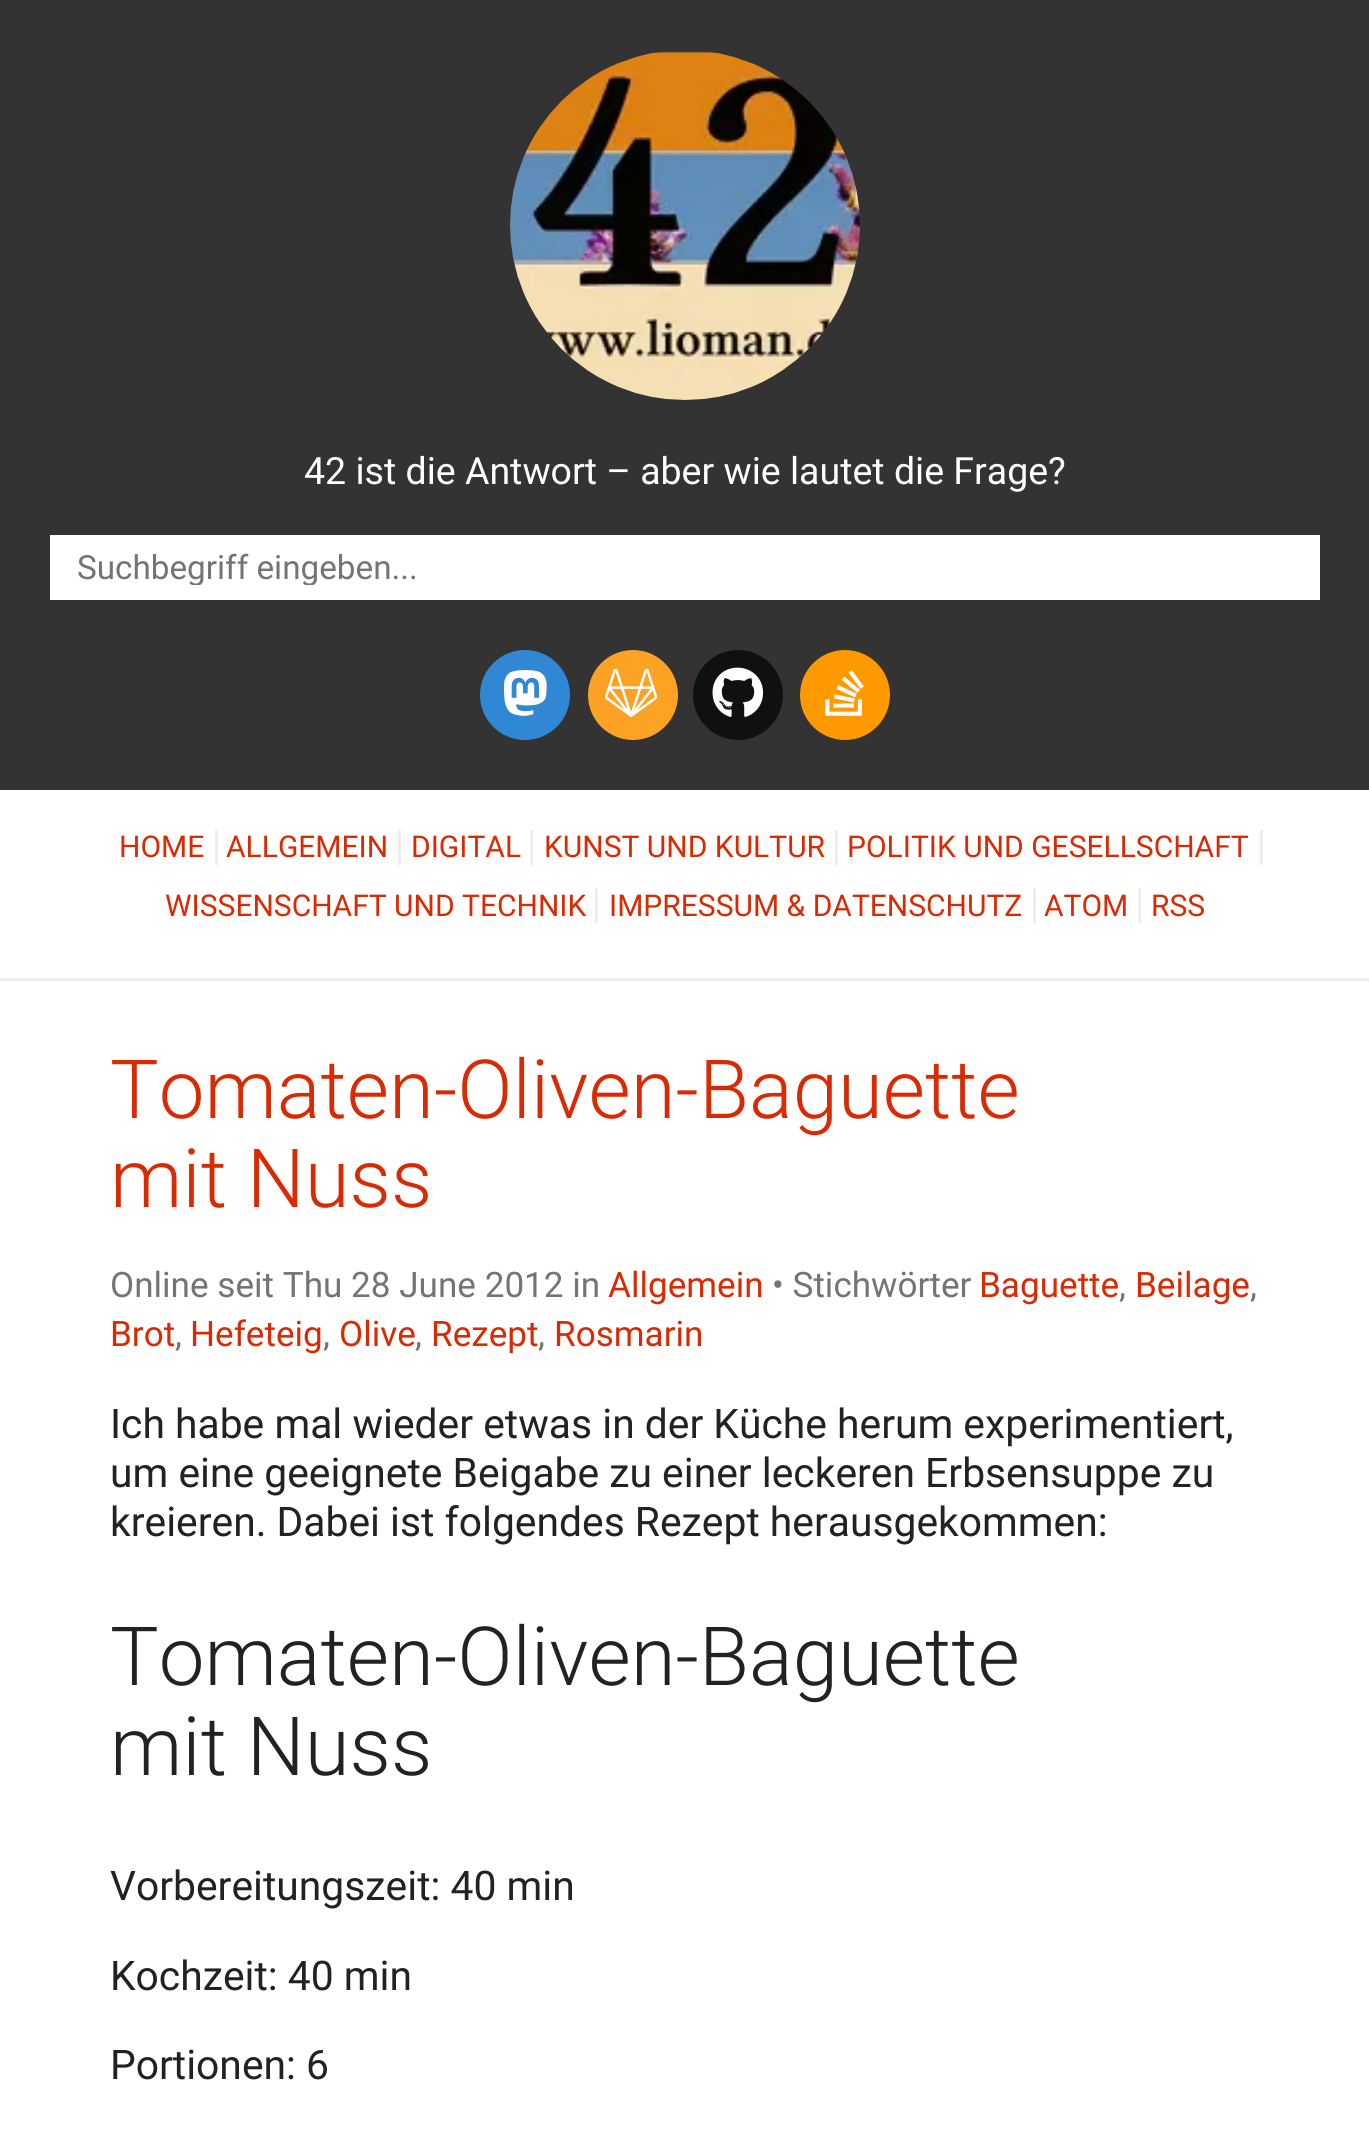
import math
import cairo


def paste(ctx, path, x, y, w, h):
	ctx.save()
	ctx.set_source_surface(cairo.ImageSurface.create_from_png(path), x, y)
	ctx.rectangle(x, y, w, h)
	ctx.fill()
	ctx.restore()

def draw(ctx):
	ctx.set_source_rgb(1, 1, 1)
	ctx.paint()
	ctx.set_source_rgb(0.2, 0.2, 0.2)
	ctx.rectangle(0, 0, 1369, 790)
	ctx.fill()
	paste(ctx, 'media/1.png', 510, 51, 350, 349)
	ctx.select_font_face('Roboto')
	ctx.set_font_size(37.5)
	ctx.set_source_rgb(1, 1, 1)
	ctx.move_to(304, 484)
	ctx.show_text('42 ist die Antwort – aber wie lautet die Frage?')
	ctx.rectangle(50, 535, 1270, 65)
	ctx.fill()
	ctx.save()
	ctx.rectangle(78, 548, 1215, 37)
	ctx.clip()
	ctx.set_font_size(33.25)
	ctx.set_source_rgb(0.459, 0.455, 0.455)
	ctx.move_to(77, 579)
	ctx.show_text('Suchbegriff eingeben...')
	ctx.restore()
	ctx.set_source_rgb(0.188, 0.533, 0.831)
	ctx.new_path()
	ctx.arc(525, 695, 45, 0, 2 * math.pi)
	ctx.fill()
	paste(ctx, 'media/2.png', 504, 670, 43, 46)
	ctx.set_source_rgb(0.988, 0.639, 0.149)
	ctx.arc(633, 695, 45, 0, 2 * math.pi)
	ctx.fill()
	paste(ctx, 'media/3.png', 605, 668, 53, 49)
	ctx.set_source_rgb(0.067, 0.063, 0.063)
	ctx.arc(738, 695, 45, 0, 2 * math.pi)
	ctx.fill()
	paste(ctx, 'media/4.png', 712, 667, 52, 50)
	ctx.set_source_rgb(1, 0.6, 0)
	ctx.arc(845, 695, 45, 0, 2 * math.pi)
	ctx.fill()
	paste(ctx, 'media/5.png', 825, 670, 39, 46)
	ctx.set_source_rgb(0.933, 0.933, 0.933)
	ctx.rectangle(0, 978, 1369, 3)
	ctx.fill()
	ctx.set_font_size(30)
	ctx.set_source_rgb(0.851, 0.169, 0.012)
	ctx.move_to(119, 857)
	ctx.show_text('HOME')
	ctx.set_source_rgb(0.933, 0.933, 0.933)
	ctx.rectangle(215, 830, 3, 35)
	ctx.fill()
	ctx.set_source_rgb(0.851, 0.169, 0.012)
	ctx.move_to(226, 857)
	ctx.show_text('ALLGEMEIN')
	ctx.set_source_rgb(0.933, 0.933, 0.933)
	ctx.rectangle(398, 830, 3, 35)
	ctx.fill()
	ctx.set_source_rgb(0.851, 0.169, 0.012)
	ctx.move_to(411, 857)
	ctx.show_text('DIGITAL')
	ctx.set_source_rgb(0.933, 0.933, 0.933)
	ctx.rectangle(530, 830, 3, 35)
	ctx.fill()
	ctx.set_source_rgb(0.851, 0.169, 0.012)
	ctx.move_to(544, 857)
	ctx.show_text('KUNST UND KULTUR')
	ctx.set_source_rgb(0.933, 0.933, 0.933)
	ctx.rectangle(835, 830, 3, 35)
	ctx.fill()
	ctx.set_source_rgb(0.851, 0.169, 0.012)
	ctx.move_to(847, 857)
	ctx.show_text('POLITIK UND GESELLSCHAFT')
	ctx.set_source_rgb(0.933, 0.933, 0.933)
	ctx.rectangle(1260, 830, 3, 35)
	ctx.fill()
	ctx.set_source_rgb(0.851, 0.169, 0.012)
	ctx.move_to(165, 916)
	ctx.show_text('WISSENSCHAFT UND TECHNIK')
	ctx.set_source_rgb(0.933, 0.933, 0.933)
	ctx.rectangle(595, 888, 3, 35)
	ctx.fill()
	ctx.set_source_rgb(0.851, 0.169, 0.012)
	ctx.move_to(609, 916)
	ctx.show_text('IMPRESSUM & DATENSCHUTZ')
	ctx.set_source_rgb(0.933, 0.933, 0.933)
	ctx.rectangle(1033, 888, 3, 35)
	ctx.fill()
	ctx.set_source_rgb(0.851, 0.169, 0.012)
	ctx.move_to(1044, 916)
	ctx.show_text('ATOM')
	ctx.set_source_rgb(0.933, 0.933, 0.933)
	ctx.rectangle(1138, 888, 3, 35)
	ctx.fill()
	ctx.set_source_rgb(0.851, 0.169, 0.012)
	ctx.move_to(1151, 916)
	ctx.show_text('RSS')
	ctx.select_font_face('Roboto Light')
	ctx.set_font_size(81.6)
	ctx.move_to(110, 1118)
	ctx.show_text('Tomaten-Oliven-Baguette')
	ctx.move_to(110, 1207)
	ctx.show_text('mit Nuss')
	ctx.select_font_face('Roboto')
	ctx.set_font_size(35.1)
	ctx.set_source_rgb(0.459, 0.455, 0.455)
	ctx.move_to(110, 1297)
	ctx.show_text('Online seit Thu 28 June 2012 in')
	ctx.set_source_rgb(0.851, 0.169, 0.012)
	ctx.move_to(608, 1297)
	ctx.show_text('Allgemein')
	ctx.set_source_rgb(0.459, 0.455, 0.455)
	ctx.move_to(772, 1297)
	ctx.show_text('• Stichwörter')
	ctx.set_source_rgb(0.851, 0.169, 0.012)
	ctx.move_to(979, 1297)
	ctx.show_text('Baguette')
	ctx.set_source_rgb(0.459, 0.455, 0.455)
	ctx.move_to(1119, 1297)
	ctx.show_text(',')
	ctx.set_source_rgb(0.851, 0.169, 0.012)
	ctx.move_to(1135, 1297)
	ctx.show_text('Beilage')
	ctx.set_source_rgb(0.459, 0.455, 0.455)
	ctx.move_to(1250, 1297)
	ctx.show_text(',')
	ctx.set_source_rgb(0.851, 0.169, 0.012)
	ctx.move_to(110, 1346)
	ctx.show_text('Brot')
	ctx.set_source_rgb(0.459, 0.455, 0.455)
	ctx.move_to(175, 1346)
	ctx.show_text(',')
	ctx.set_source_rgb(0.851, 0.169, 0.012)
	ctx.move_to(190, 1346)
	ctx.show_text('Hefeteig')
	ctx.set_source_rgb(0.459, 0.455, 0.455)
	ctx.move_to(323, 1346)
	ctx.show_text(',')
	ctx.set_source_rgb(0.851, 0.169, 0.012)
	ctx.move_to(339, 1346)
	ctx.show_text('Olive')
	ctx.set_source_rgb(0.459, 0.455, 0.455)
	ctx.move_to(415, 1346)
	ctx.show_text(',')
	ctx.set_source_rgb(0.851, 0.169, 0.012)
	ctx.move_to(431, 1346)
	ctx.show_text('Rezept')
	ctx.set_source_rgb(0.459, 0.455, 0.455)
	ctx.move_to(538, 1346)
	ctx.show_text(',')
	ctx.set_source_rgb(0.851, 0.169, 0.012)
	ctx.move_to(554, 1346)
	ctx.show_text('Rosmarin')
	ctx.set_font_size(40.8)
	ctx.set_source_rgb(0.141, 0.129, 0.129)
	for x, y, s in [
		(110, 1438, 'Ich habe mal wieder etwas in der Küche herum experimentiert,'),
		(110, 1487, 'um eine geeignete Beigabe zu einer leckeren Erbsensuppe zu'),
		(110, 1536, 'kreieren. Dabei ist folgendes Rezept herausgekommen:'),
	]:
		ctx.move_to(x, y)
		ctx.show_text(s)
	ctx.select_font_face('Roboto Light')
	ctx.set_font_size(81.6)
	ctx.move_to(110, 1685)
	ctx.show_text('Tomaten-Oliven-Baguette')
	ctx.move_to(110, 1775)
	ctx.show_text('mit Nuss')
	ctx.select_font_face('Roboto')
	ctx.set_font_size(40.8)
	for x, y, s in [
		(110, 1900, 'Vorbereitungszeit: 40 min'),
		(110, 1990, 'Kochzeit: 40 min'),
		(110, 2079, 'Portionen: 6'),
	]:
		ctx.move_to(x, y)
		ctx.show_text(s)


surface = cairo.ImageSurface(cairo.FORMAT_RGB24, 1369, 2146)
ctx = cairo.Context(surface)
options = cairo.FontOptions()
options.set_hint_metrics(cairo.HINT_METRICS_OFF)
options.set_hint_style(cairo.HINT_STYLE_NONE)
ctx.set_font_options(options)
ctx.set_miter_limit(4)
draw(ctx)
surface.write_to_png('image.png')
